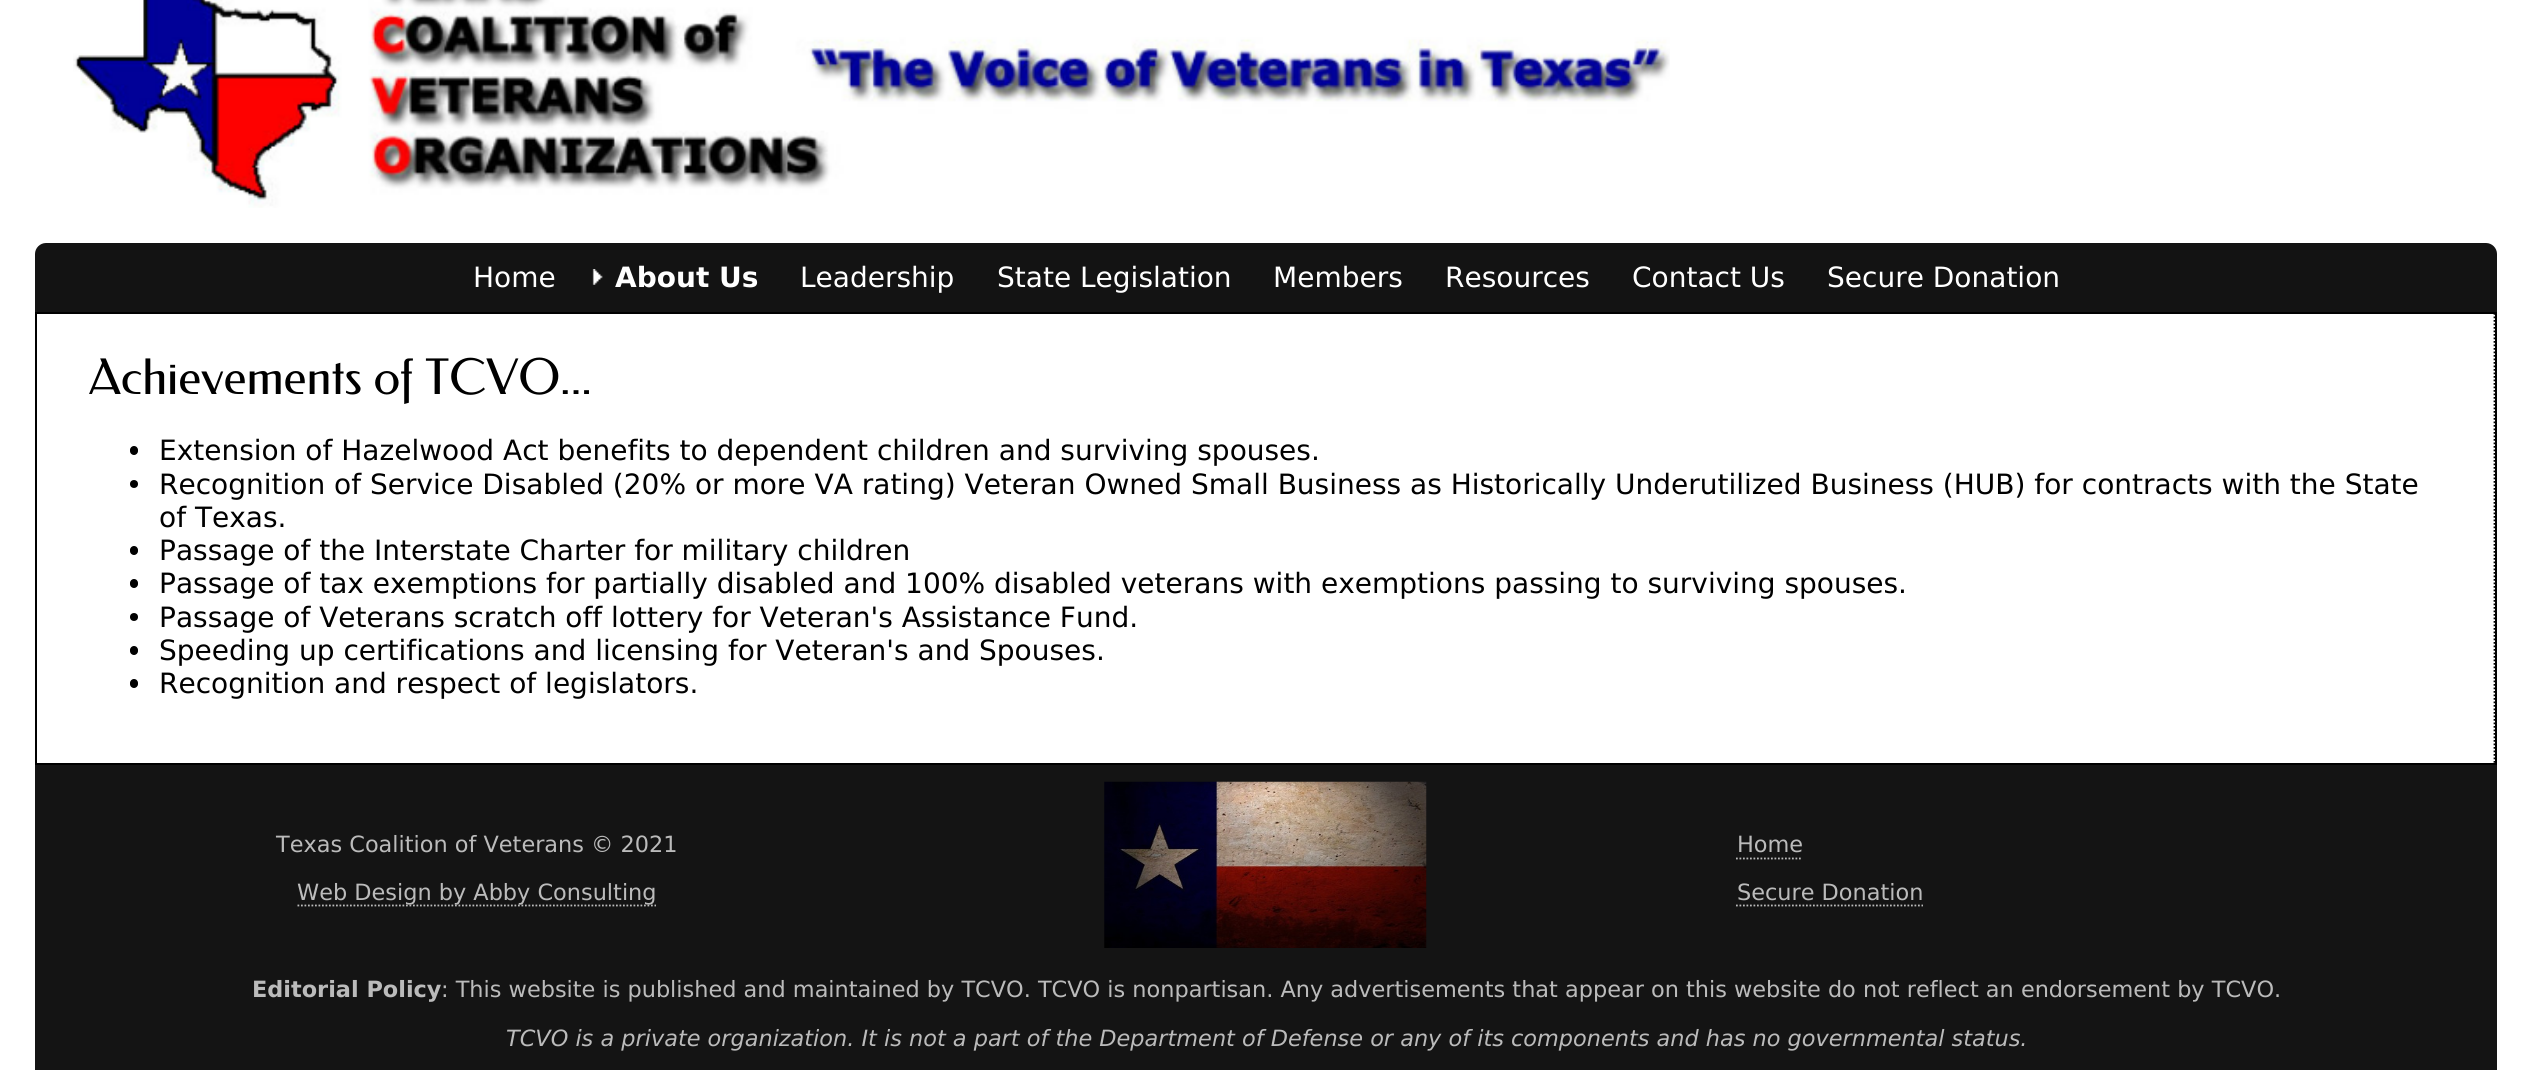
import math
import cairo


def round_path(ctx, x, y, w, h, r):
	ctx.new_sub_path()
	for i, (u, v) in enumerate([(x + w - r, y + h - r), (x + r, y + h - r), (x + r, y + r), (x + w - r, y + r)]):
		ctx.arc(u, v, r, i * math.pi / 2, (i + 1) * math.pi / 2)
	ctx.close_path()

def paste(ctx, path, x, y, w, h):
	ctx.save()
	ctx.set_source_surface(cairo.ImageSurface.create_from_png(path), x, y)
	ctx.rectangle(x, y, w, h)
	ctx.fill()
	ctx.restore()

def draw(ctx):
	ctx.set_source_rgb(1, 1, 1)
	ctx.paint()
	paste(ctx, 'media/1.png', 73, 0, 1597, 208)
	ctx.set_source_rgb(0.078, 0.078, 0.078)
	ctx.new_path()
	ctx.move_to(46, 243)
	ctx.line_to(2486, 243)
	ctx.curve_to(2492, 243, 2497, 248, 2497, 254)
	ctx.line_to(2497, 312)
	ctx.line_to(35, 312)
	ctx.line_to(35, 254)
	ctx.curve_to(35, 248, 40, 243, 46, 243)
	ctx.close_path()
	ctx.fill()
	ctx.select_font_face('DejaVu Sans')
	ctx.set_font_size(28)
	ctx.set_source_rgb(1, 1, 1)
	ctx.move_to(473, 287)
	ctx.show_text('Home')
	paste(ctx, 'media/2.png', 592, 269, 11, 16)
	ctx.select_font_face('DejaVu Sans', cairo.FONT_SLANT_NORMAL, cairo.FONT_WEIGHT_BOLD)
	ctx.move_to(615, 287)
	ctx.show_text('About Us')
	ctx.select_font_face('DejaVu Sans')
	for x, y, s in [
		(800, 287, 'Leadership'),
		(997, 287, 'State Legislation'),
		(1273, 287, 'Members'),
		(1445, 287, 'Resources'),
		(1632, 287, 'Contact Us'),
		(1827, 287, 'Secure Donation'),
	]:
		ctx.move_to(x, y)
		ctx.show_text(s)
	ctx.rectangle(36, 313, 2460, 451)
	ctx.set_source_rgb(0, 0, 0)
	ctx.stroke()
	ctx.new_path()
	ctx.move_to(2494.5, 313)
	ctx.line_to(2494.5, 763)
	ctx.set_line_width(1.8)
	ctx.set_dash([1.75, 1.75])
	ctx.stroke()
	ctx.select_font_face('Federo')
	ctx.set_font_size(49)
	ctx.move_to(89, 394)
	ctx.show_text('Achievements of TCVO...')
	round_path(ctx, 130, 446, 8, 9, 4)
	ctx.fill()
	ctx.select_font_face('DejaVu Sans')
	ctx.set_font_size(28)
	ctx.move_to(159, 460)
	ctx.show_text('Extension of Hazelwood Act benefits to dependent children and surviving spouses.')
	ctx.new_path()
	ctx.arc(134, 484, 4, 0, 2 * math.pi)
	ctx.fill()
	ctx.move_to(159, 494)
	ctx.show_text('Recognition of Service Disabled (20% or more VA rating) Veteran Owned Small Business as Historically Underutilized Business (HUB) for contracts with the State')
	ctx.move_to(159, 527)
	ctx.show_text('of Texas.')
	round_path(ctx, 130, 546, 8, 9, 4)
	ctx.fill()
	ctx.move_to(159, 560)
	ctx.show_text('Passage of the Interstate Charter for military children')
	round_path(ctx, 130, 579, 8, 9, 4)
	ctx.fill()
	ctx.move_to(159, 593)
	ctx.show_text('Passage of tax exemptions for partially disabled and 100% disabled veterans with exemptions passing to surviving spouses.')
	ctx.new_path()
	ctx.arc(134, 617, 4, 0, 2 * math.pi)
	ctx.fill()
	ctx.move_to(159, 627)
	ctx.show_text('Passage of Veterans scratch off lottery for Veteran\'s Assistance Fund.')
	round_path(ctx, 130, 646, 8, 9, 4)
	ctx.fill()
	ctx.move_to(159, 660)
	ctx.show_text('Speeding up certifications and licensing for Veteran\'s and Spouses.')
	round_path(ctx, 130, 679, 8, 9, 4)
	ctx.fill()
	ctx.move_to(159, 693)
	ctx.show_text('Recognition and respect of legislators.')
	ctx.set_source_rgb(0.082, 0.082, 0.082)
	ctx.rectangle(35, 765, 2462, 305)
	ctx.fill()
	ctx.set_font_size(22.4)
	ctx.set_source_rgb(0.733, 0.733, 0.733)
	ctx.move_to(276, 852)
	ctx.show_text('Texas Coalition of Veterans © 2021')
	ctx.new_path()
	ctx.move_to(297.5, 905.5)
	ctx.line_to(656, 905.5)
	ctx.stroke()
	ctx.move_to(297, 900)
	ctx.show_text('Web Design by Abby Consulting')
	paste(ctx, 'media/3.png', 1104, 781, 323, 167)
	ctx.move_to(1737, 852)
	ctx.show_text('Home')
	ctx.new_path()
	ctx.move_to(1736, 858.5)
	ctx.line_to(1802.5, 858.5)
	ctx.stroke()
	ctx.move_to(1737, 900)
	ctx.show_text('Secure Donation')
	ctx.new_path()
	ctx.move_to(1736, 905.5)
	ctx.line_to(1923, 905.5)
	ctx.stroke()
	ctx.select_font_face('DejaVu Sans', cairo.FONT_SLANT_NORMAL, cairo.FONT_WEIGHT_BOLD)
	ctx.move_to(252, 997)
	ctx.show_text('Editorial Policy')
	ctx.select_font_face('DejaVu Sans')
	ctx.move_to(441, 997)
	ctx.show_text(': This website is published and maintained by TCVO. TCVO is nonpartisan. Any advertisements that appear on this website do not reflect an endorsement by TCVO.')
	ctx.select_font_face('DejaVu Sans', cairo.FONT_SLANT_ITALIC)
	ctx.move_to(506, 1046)
	ctx.show_text('TCVO is a private organization. It is not a part of the Department of Defense or any of its components and has no governmental status.')


surface = cairo.ImageSurface(cairo.FORMAT_RGB24, 2531, 1070)
ctx = cairo.Context(surface)
options = cairo.FontOptions()
options.set_hint_metrics(cairo.HINT_METRICS_OFF)
options.set_hint_style(cairo.HINT_STYLE_NONE)
ctx.set_font_options(options)
ctx.set_miter_limit(4)
draw(ctx)
surface.write_to_png('image.png')
